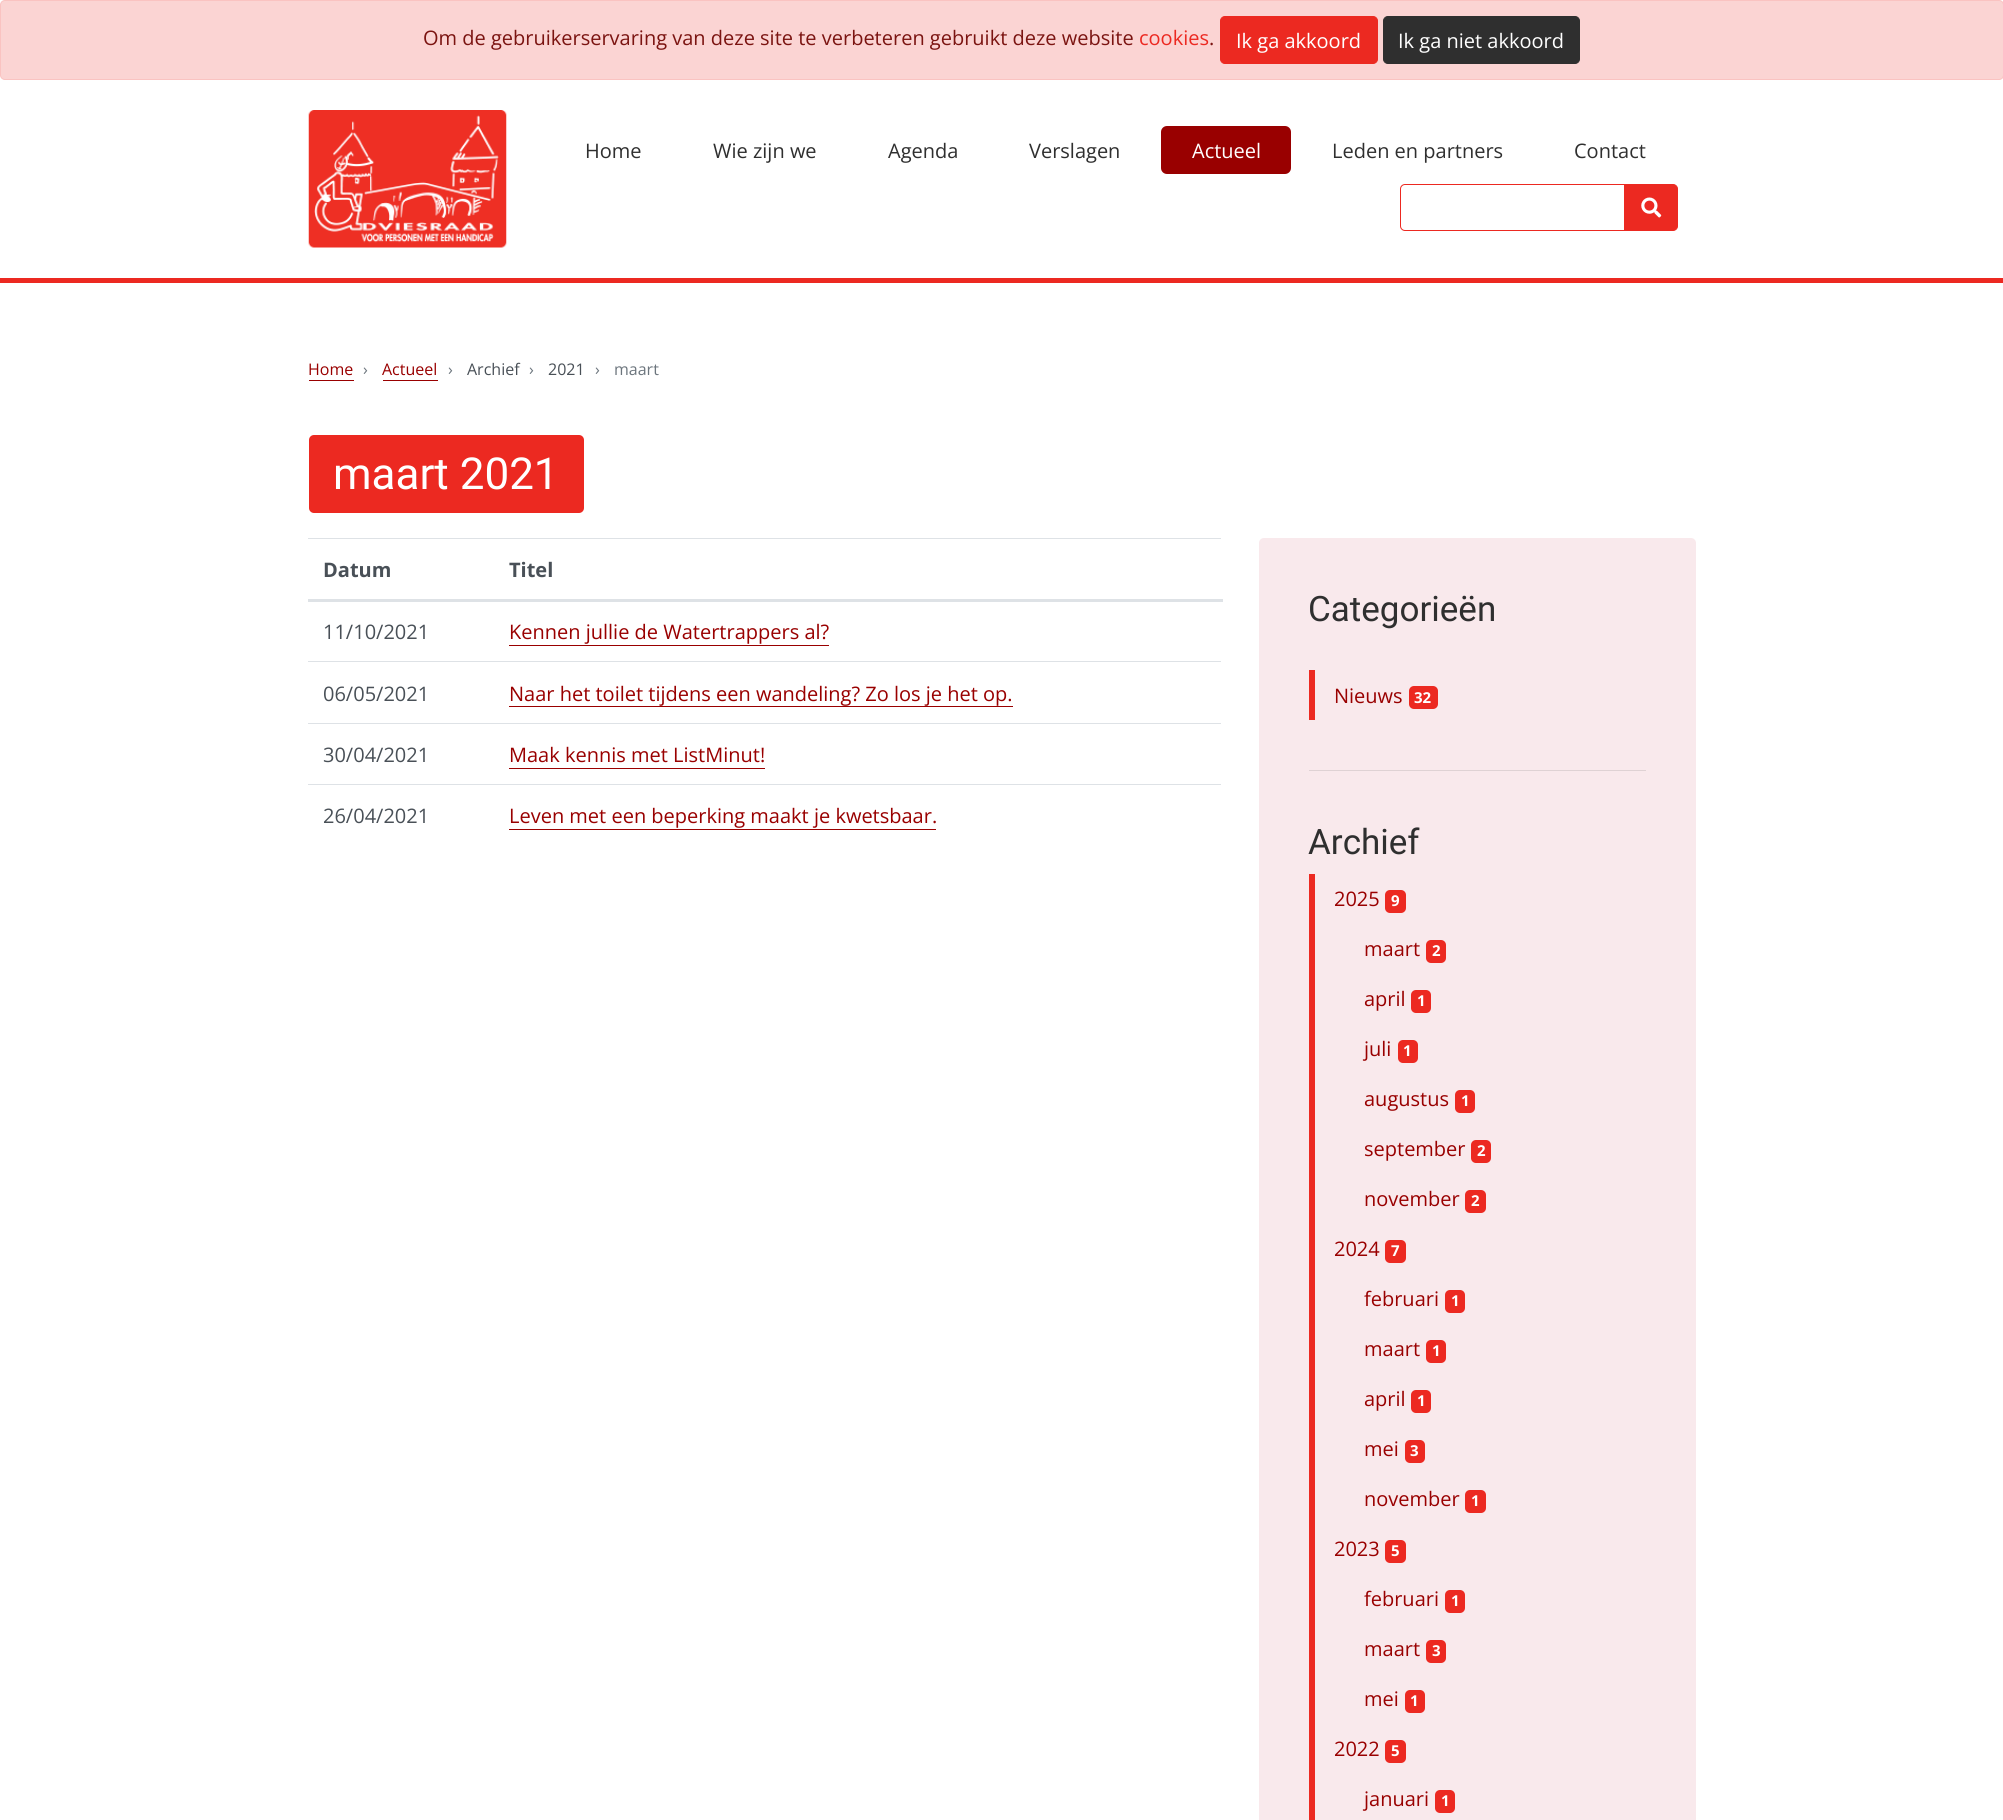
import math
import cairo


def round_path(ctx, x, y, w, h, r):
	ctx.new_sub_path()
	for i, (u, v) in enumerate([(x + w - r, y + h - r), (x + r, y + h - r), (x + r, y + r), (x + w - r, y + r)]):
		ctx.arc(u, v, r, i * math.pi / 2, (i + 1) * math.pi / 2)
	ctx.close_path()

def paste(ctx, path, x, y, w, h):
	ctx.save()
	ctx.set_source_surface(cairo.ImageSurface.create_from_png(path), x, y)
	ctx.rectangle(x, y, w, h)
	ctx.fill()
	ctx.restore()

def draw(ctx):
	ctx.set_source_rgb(1, 1, 1)
	ctx.paint()
	ctx.set_source_rgb(0.984, 0.831, 0.827)
	round_path(ctx, 0.5, 0.5, 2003, 79, 4.5)
	ctx.fill_preserve()
	ctx.set_source_rgb(0.98, 0.765, 0.757)
	ctx.set_line_width(1)
	ctx.stroke()
	ctx.select_font_face('Open Sans')
	ctx.set_font_size(20)
	ctx.set_source_rgb(0.482, 0.082, 0.067)
	ctx.move_to(423, 45)
	ctx.show_text('Om de gebruikerservaring van deze site te verbeteren gebruikt deze website')
	ctx.set_source_rgb(0.925, 0.161, 0.129)
	ctx.move_to(1139, 45)
	ctx.show_text('cookies')
	ctx.set_source_rgb(0.482, 0.082, 0.067)
	ctx.move_to(1209, 45)
	ctx.show_text('.')
	ctx.set_source_rgb(0.925, 0.161, 0.129)
	round_path(ctx, 1220.5, 16.5, 157, 47, 4.5)
	ctx.fill_preserve()
	ctx.stroke()
	ctx.set_source_rgb(1, 1, 1)
	ctx.move_to(1236, 48)
	ctx.show_text('Ik ga akkoord')
	ctx.set_source_rgb(0.184, 0.184, 0.184)
	round_path(ctx, 1383.5, 16.5, 196, 47, 4.5)
	ctx.fill_preserve()
	ctx.stroke()
	ctx.set_source_rgb(1, 1, 1)
	ctx.move_to(1398, 48)
	ctx.show_text('Ik ga niet akkoord')
	ctx.set_source_rgb(0.925, 0.161, 0.129)
	ctx.rectangle(0, 278, 2003, 5)
	ctx.fill()
	paste(ctx, 'media/1.png', 308, 110, 199, 138)
	ctx.set_source_rgb(0.184, 0.184, 0.184)
	for x, y, s in [
		(585, 158, 'Home'),
		(713, 158, 'Wie zijn we'),
		(888, 158, 'Agenda'),
		(1029, 158, 'Verslagen'),
	]:
		ctx.move_to(x, y)
		ctx.show_text(s)
	ctx.set_source_rgb(0.6, 0, 0)
	round_path(ctx, 1161, 126, 130, 48, 6)
	ctx.fill()
	ctx.set_source_rgb(1, 1, 1)
	ctx.move_to(1192, 158)
	ctx.show_text('Actueel')
	ctx.set_source_rgb(0.184, 0.184, 0.184)
	ctx.move_to(1332, 158)
	ctx.show_text('Leden en partners')
	ctx.move_to(1574, 158)
	ctx.show_text('Contact')
	ctx.new_path()
	ctx.move_to(1405, 184.5)
	ctx.line_to(1624.5, 184.5)
	ctx.line_to(1624.5, 230.5)
	ctx.line_to(1405, 230.5)
	ctx.curve_to(1402.5, 230.5, 1400.5, 228.5, 1400.5, 226)
	ctx.line_to(1400.5, 189)
	ctx.curve_to(1400.5, 186.5, 1402.5, 184.5, 1405, 184.5)
	ctx.close_path()
	ctx.set_source_rgb(0.925, 0.161, 0.129)
	ctx.stroke()
	ctx.new_path()
	ctx.move_to(1625.5, 184.5)
	ctx.line_to(1673, 184.5)
	ctx.curve_to(1675.5, 184.5, 1677.5, 186.5, 1677.5, 189)
	ctx.line_to(1677.5, 226)
	ctx.curve_to(1677.5, 228.5, 1675.5, 230.5, 1673, 230.5)
	ctx.line_to(1625.5, 230.5)
	ctx.close_path()
	ctx.fill_preserve()
	ctx.stroke()
	paste(ctx, 'media/2.png', 1641, 197, 21, 21)
	ctx.set_font_size(16)
	ctx.set_source_rgb(0.6, 0, 0)
	ctx.move_to(308, 375)
	ctx.show_text('Home')
	ctx.rectangle(309, 380, 45, 1)
	ctx.fill()
	ctx.set_source_rgb(0.424, 0.459, 0.49)
	ctx.move_to(363, 375)
	ctx.show_text('›')
	ctx.set_source_rgb(0.6, 0, 0)
	ctx.move_to(382, 375)
	ctx.show_text('Actueel')
	ctx.rectangle(383, 380, 55, 1)
	ctx.fill()
	ctx.set_source_rgb(0.424, 0.459, 0.49)
	ctx.move_to(448, 375)
	ctx.show_text('›')
	ctx.set_source_rgb(0.286, 0.314, 0.341)
	ctx.move_to(467, 375)
	ctx.show_text('Archief')
	ctx.set_source_rgb(0.424, 0.459, 0.49)
	ctx.move_to(529, 375)
	ctx.show_text('›')
	ctx.set_source_rgb(0.286, 0.314, 0.341)
	ctx.move_to(548, 375)
	ctx.show_text('2021')
	ctx.set_source_rgb(0.424, 0.459, 0.49)
	ctx.move_to(595, 375)
	ctx.show_text('›')
	ctx.move_to(614, 375)
	ctx.show_text('maart')
	ctx.set_source_rgb(0.925, 0.161, 0.129)
	round_path(ctx, 309, 435, 275, 78, 5)
	ctx.fill()
	ctx.select_font_face('Roboto')
	ctx.set_font_size(44)
	ctx.set_source_rgb(1, 1, 1)
	ctx.move_to(333, 489)
	ctx.show_text('maart 2021')
	ctx.select_font_face('Open Sans', cairo.FONT_SLANT_NORMAL, cairo.FONT_WEIGHT_BOLD)
	ctx.set_font_size(20)
	ctx.set_source_rgb(0.286, 0.314, 0.341)
	ctx.move_to(323, 577)
	ctx.show_text('Datum')
	ctx.set_source_rgb(0.871, 0.886, 0.902)
	ctx.rectangle(308, 538, 913, 1)
	ctx.fill()
	ctx.rectangle(308, 599, 915, 3)
	ctx.fill()
	ctx.set_source_rgb(0.286, 0.314, 0.341)
	ctx.move_to(509, 577)
	ctx.show_text('Titel')
	ctx.select_font_face('Open Sans')
	ctx.move_to(323, 639)
	ctx.show_text('11/10/2021')
	ctx.set_source_rgb(0.6, 0, 0)
	ctx.move_to(509, 639)
	ctx.show_text('Kennen jullie de Watertrappers al?')
	ctx.rectangle(509, 645, 320, 1)
	ctx.fill()
	ctx.set_source_rgb(0.286, 0.314, 0.341)
	ctx.move_to(323, 701)
	ctx.show_text('06/05/2021')
	ctx.set_source_rgb(0.871, 0.886, 0.902)
	ctx.rectangle(308, 661, 913, 1)
	ctx.fill()
	ctx.set_source_rgb(0.6, 0, 0)
	ctx.move_to(509, 701)
	ctx.show_text('Naar het toilet tijdens een wandeling? Zo los je het op.')
	ctx.rectangle(509, 706, 504, 1)
	ctx.fill()
	ctx.set_source_rgb(0.286, 0.314, 0.341)
	ctx.move_to(323, 762)
	ctx.show_text('30/04/2021')
	ctx.set_source_rgb(0.871, 0.886, 0.902)
	ctx.rectangle(308, 723, 913, 1)
	ctx.fill()
	ctx.set_source_rgb(0.6, 0, 0)
	ctx.move_to(509, 762)
	ctx.show_text('Maak kennis met ListMinut!')
	ctx.rectangle(509, 768, 256, 1)
	ctx.fill()
	ctx.set_source_rgb(0.286, 0.314, 0.341)
	ctx.move_to(323, 823)
	ctx.show_text('26/04/2021')
	ctx.set_source_rgb(0.871, 0.886, 0.902)
	ctx.rectangle(308, 784, 913, 1)
	ctx.fill()
	ctx.set_source_rgb(0.6, 0, 0)
	ctx.move_to(509, 823)
	ctx.show_text('Leven met een beperking maakt je kwetsbaar.')
	ctx.rectangle(509, 829, 427, 1)
	ctx.fill()
	ctx.set_source_rgb(0.973, 0.914, 0.922)
	round_path(ctx, 1259, 538, 437, 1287, 5)
	ctx.fill()
	ctx.select_font_face('Roboto')
	ctx.set_font_size(35)
	ctx.set_source_rgb(0.184, 0.184, 0.184)
	ctx.move_to(1308, 621)
	ctx.show_text('Categorieën')
	ctx.set_source_rgb(0.925, 0.161, 0.129)
	ctx.rectangle(1309, 670, 6, 50)
	ctx.fill()
	ctx.select_font_face('Open Sans')
	ctx.set_font_size(20)
	ctx.set_source_rgb(0.6, 0, 0)
	ctx.move_to(1334, 703)
	ctx.show_text('Nieuws')
	ctx.set_source_rgb(0.925, 0.161, 0.129)
	round_path(ctx, 1409, 686, 29, 23, 5)
	ctx.fill()
	ctx.select_font_face('Open Sans', cairo.FONT_SLANT_NORMAL, cairo.FONT_WEIGHT_BOLD)
	ctx.set_font_size(15)
	ctx.set_source_rgb(1, 1, 1)
	ctx.move_to(1414, 703)
	ctx.show_text('32')
	ctx.set_source_rgb(0.875, 0.824, 0.831)
	ctx.rectangle(1309, 770, 337, 1)
	ctx.fill()
	ctx.select_font_face('Roboto')
	ctx.set_font_size(35)
	ctx.set_source_rgb(0.184, 0.184, 0.184)
	ctx.move_to(1308, 854)
	ctx.show_text('Archief')
	ctx.set_source_rgb(0.925, 0.161, 0.129)
	ctx.rectangle(1309, 874, 6, 946)
	ctx.fill()
	ctx.select_font_face('Open Sans')
	ctx.set_font_size(20)
	ctx.set_source_rgb(0.6, 0, 0)
	ctx.move_to(1334, 906)
	ctx.show_text('2025')
	ctx.set_source_rgb(0.925, 0.161, 0.129)
	round_path(ctx, 1385, 890, 21, 23, 5)
	ctx.fill()
	ctx.select_font_face('Open Sans', cairo.FONT_SLANT_NORMAL, cairo.FONT_WEIGHT_BOLD)
	ctx.set_font_size(15)
	ctx.set_source_rgb(1, 1, 1)
	ctx.move_to(1391, 906)
	ctx.show_text('9')
	ctx.select_font_face('Open Sans')
	ctx.set_font_size(20)
	ctx.set_source_rgb(0.6, 0, 0)
	ctx.move_to(1364, 956)
	ctx.show_text('maart')
	ctx.set_source_rgb(0.925, 0.161, 0.129)
	round_path(ctx, 1426, 940, 20, 23, 5)
	ctx.fill()
	ctx.select_font_face('Open Sans', cairo.FONT_SLANT_NORMAL, cairo.FONT_WEIGHT_BOLD)
	ctx.set_font_size(15)
	ctx.set_source_rgb(1, 1, 1)
	ctx.move_to(1432, 956)
	ctx.show_text('2')
	ctx.select_font_face('Open Sans')
	ctx.set_font_size(20)
	ctx.set_source_rgb(0.6, 0, 0)
	ctx.move_to(1364, 1006)
	ctx.show_text('april')
	ctx.set_source_rgb(0.925, 0.161, 0.129)
	round_path(ctx, 1411, 990, 20, 23, 5)
	ctx.fill()
	ctx.select_font_face('Open Sans', cairo.FONT_SLANT_NORMAL, cairo.FONT_WEIGHT_BOLD)
	ctx.set_font_size(15)
	ctx.set_source_rgb(1, 1, 1)
	ctx.move_to(1417, 1006)
	ctx.show_text('1')
	ctx.select_font_face('Open Sans')
	ctx.set_font_size(20)
	ctx.set_source_rgb(0.6, 0, 0)
	ctx.move_to(1364, 1056)
	ctx.show_text('juli')
	ctx.set_source_rgb(0.925, 0.161, 0.129)
	round_path(ctx, 1398, 1040, 20, 23, 5)
	ctx.fill()
	ctx.select_font_face('Open Sans', cairo.FONT_SLANT_NORMAL, cairo.FONT_WEIGHT_BOLD)
	ctx.set_font_size(15)
	ctx.set_source_rgb(1, 1, 1)
	ctx.move_to(1403, 1056)
	ctx.show_text('1')
	ctx.select_font_face('Open Sans')
	ctx.set_font_size(20)
	ctx.set_source_rgb(0.6, 0, 0)
	ctx.move_to(1364, 1106)
	ctx.show_text('augustus')
	ctx.set_source_rgb(0.925, 0.161, 0.129)
	round_path(ctx, 1455, 1090, 20, 23, 5)
	ctx.fill()
	ctx.select_font_face('Open Sans', cairo.FONT_SLANT_NORMAL, cairo.FONT_WEIGHT_BOLD)
	ctx.set_font_size(15)
	ctx.set_source_rgb(1, 1, 1)
	ctx.move_to(1461, 1106)
	ctx.show_text('1')
	ctx.select_font_face('Open Sans')
	ctx.set_font_size(20)
	ctx.set_source_rgb(0.6, 0, 0)
	ctx.move_to(1364, 1156)
	ctx.show_text('september')
	ctx.set_source_rgb(0.925, 0.161, 0.129)
	round_path(ctx, 1471, 1140, 20, 23, 5)
	ctx.fill()
	ctx.select_font_face('Open Sans', cairo.FONT_SLANT_NORMAL, cairo.FONT_WEIGHT_BOLD)
	ctx.set_font_size(15)
	ctx.set_source_rgb(1, 1, 1)
	ctx.move_to(1477, 1156)
	ctx.show_text('2')
	ctx.select_font_face('Open Sans')
	ctx.set_font_size(20)
	ctx.set_source_rgb(0.6, 0, 0)
	ctx.move_to(1364, 1206)
	ctx.show_text('november')
	ctx.set_source_rgb(0.925, 0.161, 0.129)
	round_path(ctx, 1465, 1190, 21, 23, 5)
	ctx.fill()
	ctx.select_font_face('Open Sans', cairo.FONT_SLANT_NORMAL, cairo.FONT_WEIGHT_BOLD)
	ctx.set_font_size(15)
	ctx.set_source_rgb(1, 1, 1)
	ctx.move_to(1471, 1206)
	ctx.show_text('2')
	ctx.select_font_face('Open Sans')
	ctx.set_font_size(20)
	ctx.set_source_rgb(0.6, 0, 0)
	ctx.move_to(1334, 1256)
	ctx.show_text('2024')
	ctx.set_source_rgb(0.925, 0.161, 0.129)
	round_path(ctx, 1385, 1240, 21, 23, 5)
	ctx.fill()
	ctx.select_font_face('Open Sans', cairo.FONT_SLANT_NORMAL, cairo.FONT_WEIGHT_BOLD)
	ctx.set_font_size(15)
	ctx.set_source_rgb(1, 1, 1)
	ctx.move_to(1391, 1256)
	ctx.show_text('7')
	ctx.select_font_face('Open Sans')
	ctx.set_font_size(20)
	ctx.set_source_rgb(0.6, 0, 0)
	ctx.move_to(1364, 1306)
	ctx.show_text('februari')
	ctx.set_source_rgb(0.925, 0.161, 0.129)
	round_path(ctx, 1445, 1290, 20, 23, 5)
	ctx.fill()
	ctx.select_font_face('Open Sans', cairo.FONT_SLANT_NORMAL, cairo.FONT_WEIGHT_BOLD)
	ctx.set_font_size(15)
	ctx.set_source_rgb(1, 1, 1)
	ctx.move_to(1451, 1306)
	ctx.show_text('1')
	ctx.select_font_face('Open Sans')
	ctx.set_font_size(20)
	ctx.set_source_rgb(0.6, 0, 0)
	ctx.move_to(1364, 1356)
	ctx.show_text('maart')
	ctx.set_source_rgb(0.925, 0.161, 0.129)
	round_path(ctx, 1426, 1340, 20, 23, 5)
	ctx.fill()
	ctx.select_font_face('Open Sans', cairo.FONT_SLANT_NORMAL, cairo.FONT_WEIGHT_BOLD)
	ctx.set_font_size(15)
	ctx.set_source_rgb(1, 1, 1)
	ctx.move_to(1432, 1356)
	ctx.show_text('1')
	ctx.select_font_face('Open Sans')
	ctx.set_font_size(20)
	ctx.set_source_rgb(0.6, 0, 0)
	ctx.move_to(1364, 1406)
	ctx.show_text('april')
	ctx.set_source_rgb(0.925, 0.161, 0.129)
	round_path(ctx, 1411, 1390, 20, 23, 5)
	ctx.fill()
	ctx.select_font_face('Open Sans', cairo.FONT_SLANT_NORMAL, cairo.FONT_WEIGHT_BOLD)
	ctx.set_font_size(15)
	ctx.set_source_rgb(1, 1, 1)
	ctx.move_to(1417, 1406)
	ctx.show_text('1')
	ctx.select_font_face('Open Sans')
	ctx.set_font_size(20)
	ctx.set_source_rgb(0.6, 0, 0)
	ctx.move_to(1364, 1456)
	ctx.show_text('mei')
	ctx.set_source_rgb(0.925, 0.161, 0.129)
	round_path(ctx, 1405, 1440, 20, 23, 5)
	ctx.fill()
	ctx.select_font_face('Open Sans', cairo.FONT_SLANT_NORMAL, cairo.FONT_WEIGHT_BOLD)
	ctx.set_font_size(15)
	ctx.set_source_rgb(1, 1, 1)
	ctx.move_to(1410, 1456)
	ctx.show_text('3')
	ctx.select_font_face('Open Sans')
	ctx.set_font_size(20)
	ctx.set_source_rgb(0.6, 0, 0)
	ctx.move_to(1364, 1506)
	ctx.show_text('november')
	ctx.set_source_rgb(0.925, 0.161, 0.129)
	round_path(ctx, 1465, 1490, 21, 23, 5)
	ctx.fill()
	ctx.select_font_face('Open Sans', cairo.FONT_SLANT_NORMAL, cairo.FONT_WEIGHT_BOLD)
	ctx.set_font_size(15)
	ctx.set_source_rgb(1, 1, 1)
	ctx.move_to(1471, 1506)
	ctx.show_text('1')
	ctx.select_font_face('Open Sans')
	ctx.set_font_size(20)
	ctx.set_source_rgb(0.6, 0, 0)
	ctx.move_to(1334, 1556)
	ctx.show_text('2023')
	ctx.set_source_rgb(0.925, 0.161, 0.129)
	round_path(ctx, 1385, 1540, 21, 23, 5)
	ctx.fill()
	ctx.select_font_face('Open Sans', cairo.FONT_SLANT_NORMAL, cairo.FONT_WEIGHT_BOLD)
	ctx.set_font_size(15)
	ctx.set_source_rgb(1, 1, 1)
	ctx.move_to(1391, 1556)
	ctx.show_text('5')
	ctx.select_font_face('Open Sans')
	ctx.set_font_size(20)
	ctx.set_source_rgb(0.6, 0, 0)
	ctx.move_to(1364, 1606)
	ctx.show_text('februari')
	ctx.set_source_rgb(0.925, 0.161, 0.129)
	round_path(ctx, 1445, 1590, 20, 23, 5)
	ctx.fill()
	ctx.select_font_face('Open Sans', cairo.FONT_SLANT_NORMAL, cairo.FONT_WEIGHT_BOLD)
	ctx.set_font_size(15)
	ctx.set_source_rgb(1, 1, 1)
	ctx.move_to(1451, 1606)
	ctx.show_text('1')
	ctx.select_font_face('Open Sans')
	ctx.set_font_size(20)
	ctx.set_source_rgb(0.6, 0, 0)
	ctx.move_to(1364, 1656)
	ctx.show_text('maart')
	ctx.set_source_rgb(0.925, 0.161, 0.129)
	round_path(ctx, 1426, 1640, 20, 23, 5)
	ctx.fill()
	ctx.select_font_face('Open Sans', cairo.FONT_SLANT_NORMAL, cairo.FONT_WEIGHT_BOLD)
	ctx.set_font_size(15)
	ctx.set_source_rgb(1, 1, 1)
	ctx.move_to(1432, 1656)
	ctx.show_text('3')
	ctx.select_font_face('Open Sans')
	ctx.set_font_size(20)
	ctx.set_source_rgb(0.6, 0, 0)
	ctx.move_to(1364, 1706)
	ctx.show_text('mei')
	ctx.set_source_rgb(0.925, 0.161, 0.129)
	round_path(ctx, 1405, 1690, 20, 23, 5)
	ctx.fill()
	ctx.select_font_face('Open Sans', cairo.FONT_SLANT_NORMAL, cairo.FONT_WEIGHT_BOLD)
	ctx.set_font_size(15)
	ctx.set_source_rgb(1, 1, 1)
	ctx.move_to(1410, 1706)
	ctx.show_text('1')
	ctx.select_font_face('Open Sans')
	ctx.set_font_size(20)
	ctx.set_source_rgb(0.6, 0, 0)
	ctx.move_to(1334, 1756)
	ctx.show_text('2022')
	ctx.set_source_rgb(0.925, 0.161, 0.129)
	round_path(ctx, 1385, 1740, 21, 23, 5)
	ctx.fill()
	ctx.select_font_face('Open Sans', cairo.FONT_SLANT_NORMAL, cairo.FONT_WEIGHT_BOLD)
	ctx.set_font_size(15)
	ctx.set_source_rgb(1, 1, 1)
	ctx.move_to(1391, 1756)
	ctx.show_text('5')
	ctx.select_font_face('Open Sans')
	ctx.set_font_size(20)
	ctx.set_source_rgb(0.6, 0, 0)
	ctx.move_to(1364, 1806)
	ctx.show_text('januari')
	ctx.set_source_rgb(0.925, 0.161, 0.129)
	round_path(ctx, 1435, 1790, 20, 23, 5)
	ctx.fill()
	ctx.select_font_face('Open Sans', cairo.FONT_SLANT_NORMAL, cairo.FONT_WEIGHT_BOLD)
	ctx.set_font_size(15)
	ctx.set_source_rgb(1, 1, 1)
	ctx.move_to(1441, 1806)
	ctx.show_text('1')


surface = cairo.ImageSurface(cairo.FORMAT_RGB24, 2003, 1820)
ctx = cairo.Context(surface)
options = cairo.FontOptions()
options.set_hint_metrics(cairo.HINT_METRICS_OFF)
options.set_hint_style(cairo.HINT_STYLE_NONE)
ctx.set_font_options(options)
ctx.set_miter_limit(4)
draw(ctx)
surface.write_to_png('image.png')
